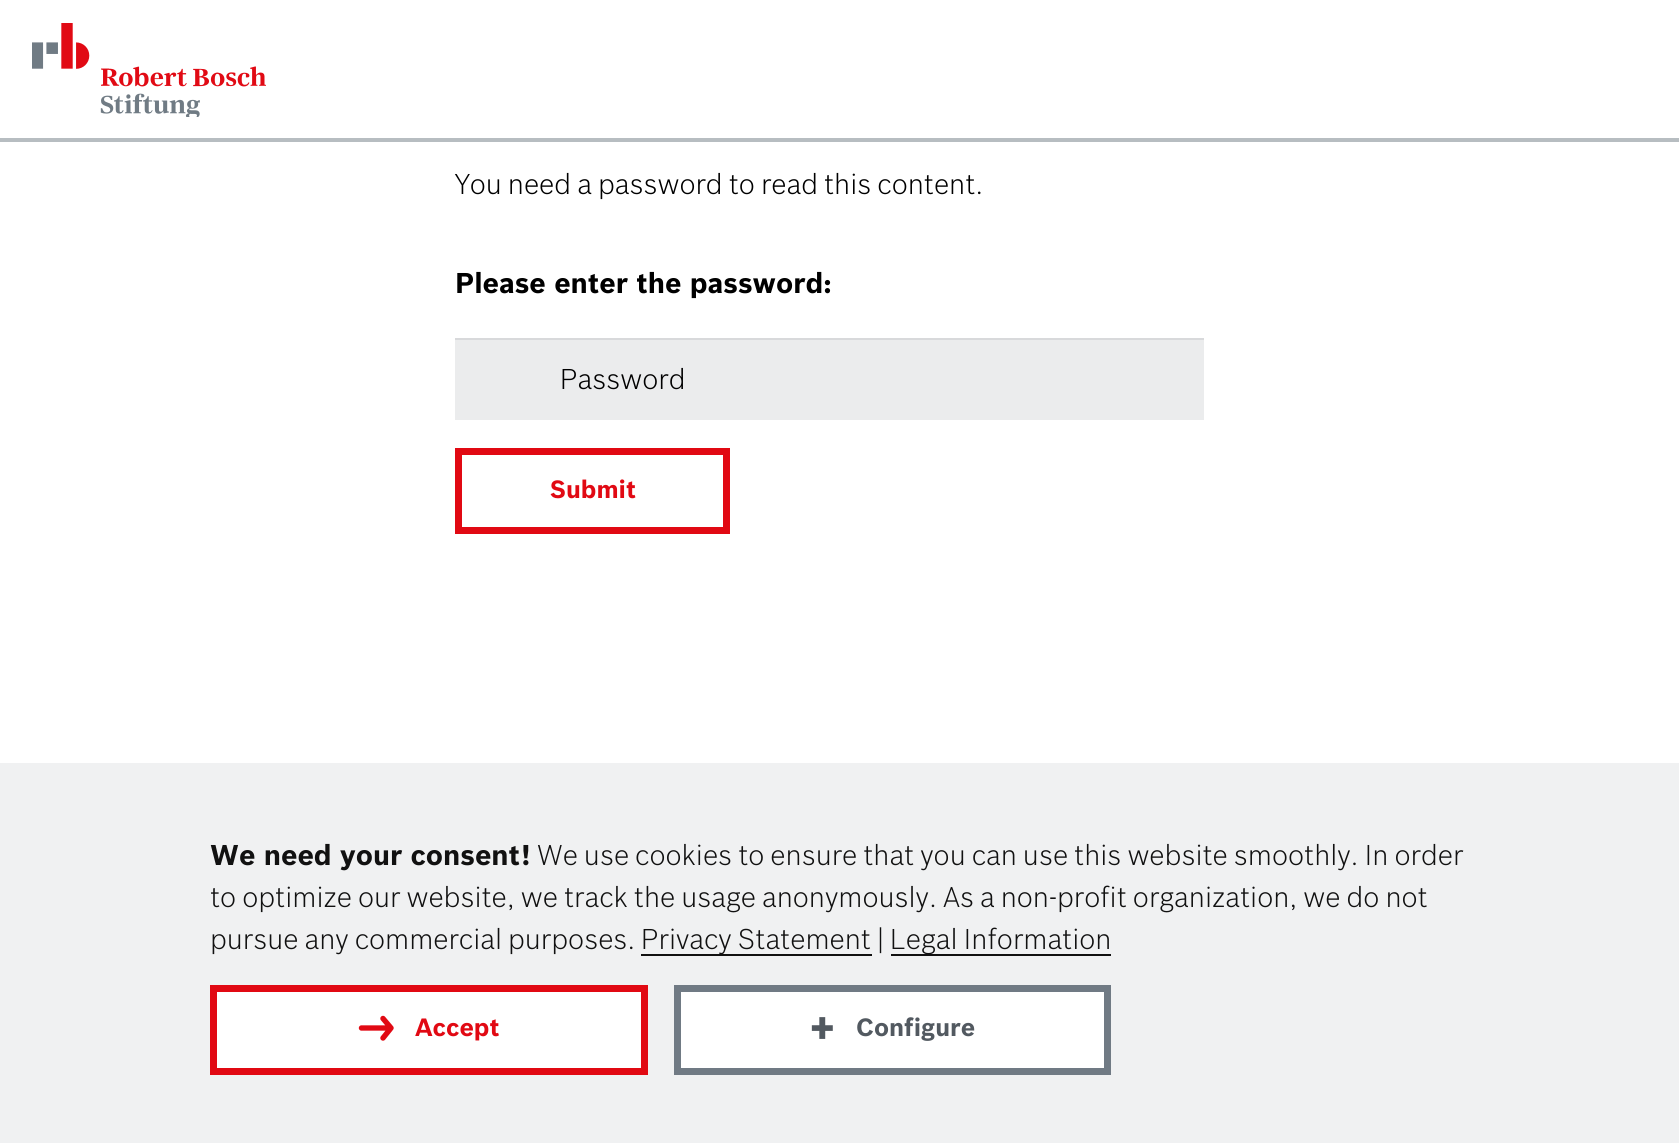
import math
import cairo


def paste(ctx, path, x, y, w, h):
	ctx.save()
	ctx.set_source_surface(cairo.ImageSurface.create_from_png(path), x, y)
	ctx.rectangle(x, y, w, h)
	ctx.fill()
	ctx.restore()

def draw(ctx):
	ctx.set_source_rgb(1, 1, 1)
	ctx.paint()
	ctx.set_source_rgb(0.718, 0.741, 0.757)
	ctx.rectangle(0, 138, 1679, 4)
	ctx.fill()
	paste(ctx, 'media/1.png', 32, 23, 234, 94)
	ctx.select_font_face('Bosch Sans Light')
	ctx.set_font_size(28)
	ctx.set_source_rgb(0, 0, 0)
	ctx.move_to(455, 194)
	ctx.show_text('You need a password to read this content.')
	ctx.select_font_face('Bosch Sans', cairo.FONT_SLANT_NORMAL, cairo.FONT_WEIGHT_BOLD)
	ctx.move_to(455, 293)
	ctx.show_text('Please enter the password:')
	ctx.set_source_rgb(0.918, 0.922, 0.929)
	ctx.rectangle(455, 340, 749, 80)
	ctx.fill()
	ctx.set_source_rgb(0.847, 0.851, 0.859)
	ctx.rectangle(455, 338, 749, 2)
	ctx.fill()
	ctx.select_font_face('Bosch Sans Light')
	ctx.set_source_rgb(0, 0, 0)
	ctx.move_to(560, 389)
	ctx.show_text('Password')
	ctx.rectangle(458.5, 451.5, 268, 79)
	ctx.set_source_rgb(0.882, 0.039, 0.078)
	ctx.set_line_width(7)
	ctx.stroke()
	ctx.select_font_face('Bosch Sans', cairo.FONT_SLANT_NORMAL, cairo.FONT_WEIGHT_BOLD)
	ctx.set_font_size(24.5)
	ctx.move_to(550, 498)
	ctx.show_text('Submit')
	ctx.set_source_rgb(0.941, 0.945, 0.949)
	ctx.rectangle(0, 763, 1679, 380)
	ctx.fill()
	ctx.set_font_size(28)
	ctx.set_source_rgb(0.067, 0.067, 0.067)
	ctx.move_to(210, 865)
	ctx.show_text('We need your consent!')
	ctx.select_font_face('Bosch Sans Light')
	for x, y, s in [
		(537, 865, 'We use cookies to ensure that you can use this website smoothly. In order'),
		(210, 907, 'to optimize our website, we track the usage anonymously. As a non-profit organization, we do not'),
		(210, 949, 'pursue any commercial purposes.'),
	]:
		ctx.move_to(x, y)
		ctx.show_text(s)
	ctx.rectangle(641, 954, 231, 2)
	ctx.fill()
	ctx.move_to(641, 949)
	ctx.show_text('Privacy Statement |')
	ctx.rectangle(891, 954, 220, 2)
	ctx.fill()
	ctx.move_to(890, 949)
	ctx.show_text('Legal Information')
	ctx.set_source_rgb(1, 1, 1)
	ctx.rectangle(213.5, 988.5, 431, 83)
	ctx.fill_preserve()
	ctx.set_source_rgb(0.882, 0.039, 0.078)
	ctx.stroke()
	ctx.new_path()
	ctx.move_to(383, 1038)
	ctx.line_to(391, 1028)
	ctx.line_to(383, 1018.5)
	ctx.move_to(391, 1028)
	ctx.line_to(361.5, 1028)
	ctx.set_line_width(5.4)
	ctx.set_line_cap(cairo.LINE_CAP_ROUND)
	ctx.set_line_join(cairo.LINE_JOIN_ROUND)
	ctx.stroke()
	ctx.select_font_face('Bosch Sans', cairo.FONT_SLANT_NORMAL, cairo.FONT_WEIGHT_BOLD)
	ctx.set_font_size(24.5)
	ctx.move_to(415, 1036)
	ctx.show_text('Accept')
	ctx.set_source_rgb(1, 1, 1)
	ctx.rectangle(677.5, 988.5, 430, 83)
	ctx.fill_preserve()
	ctx.set_source_rgb(0.439, 0.478, 0.518)
	ctx.set_line_width(7)
	ctx.set_line_cap(cairo.LINE_CAP_BUTT)
	ctx.set_line_join(cairo.LINE_JOIN_MITER)
	ctx.stroke()
	ctx.set_font_size(44)
	ctx.set_source_rgb(0.322, 0.349, 0.376)
	ctx.move_to(810, 1043)
	ctx.show_text('+')
	ctx.set_font_size(24.5)
	ctx.move_to(856, 1036)
	ctx.show_text('Configure')


surface = cairo.ImageSurface(cairo.FORMAT_RGB24, 1679, 1143)
ctx = cairo.Context(surface)
options = cairo.FontOptions()
options.set_hint_metrics(cairo.HINT_METRICS_OFF)
options.set_hint_style(cairo.HINT_STYLE_NONE)
ctx.set_font_options(options)
ctx.set_miter_limit(4)
draw(ctx)
surface.write_to_png('image.png')
